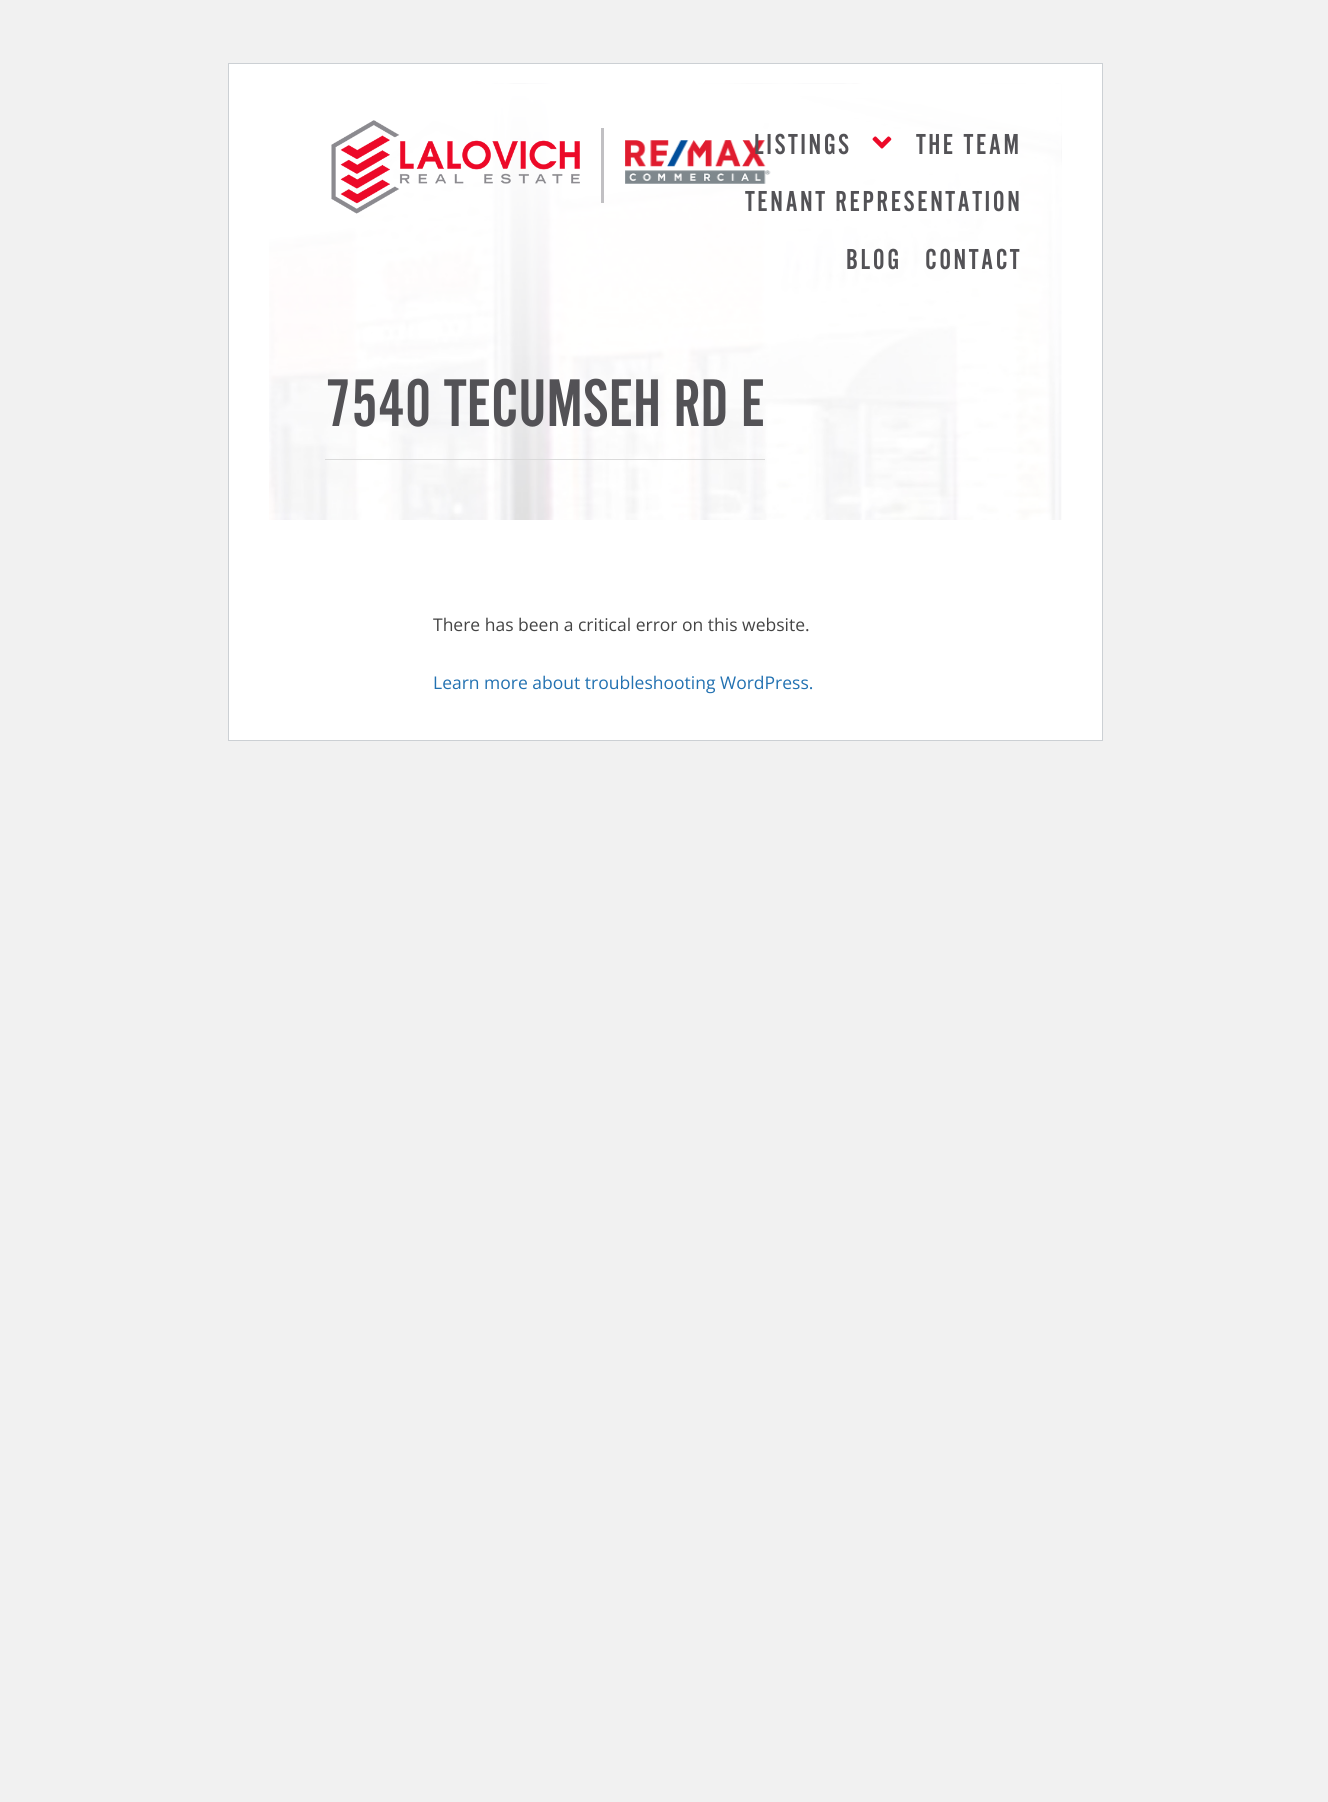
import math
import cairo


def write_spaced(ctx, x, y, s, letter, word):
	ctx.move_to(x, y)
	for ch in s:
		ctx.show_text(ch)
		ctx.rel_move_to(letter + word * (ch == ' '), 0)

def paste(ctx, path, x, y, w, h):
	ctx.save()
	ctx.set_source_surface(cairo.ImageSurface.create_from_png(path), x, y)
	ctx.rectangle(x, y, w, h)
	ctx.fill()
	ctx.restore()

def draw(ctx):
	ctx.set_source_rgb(0.945, 0.945, 0.945)
	ctx.paint()
	ctx.set_source_rgb(1, 1, 1)
	ctx.rectangle(228.5, 63.5, 874, 677)
	ctx.fill_preserve()
	ctx.set_source_rgb(0.8, 0.816, 0.831)
	ctx.set_line_width(1)
	ctx.stroke()
	paste(ctx, 'media/1.png', 269, 83, 793, 437)
	paste(ctx, 'media/2.png', 331, 120, 249, 94)
	ctx.set_source_rgb(0.757, 0.753, 0.765)
	ctx.rectangle(601, 128, 3, 75)
	ctx.fill()
	paste(ctx, 'media/3.png', 625, 140, 146, 44)
	ctx.select_font_face('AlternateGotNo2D')
	ctx.set_font_size(30)
	ctx.set_source_rgb(0.325, 0.322, 0.337)
	write_spaced(ctx, 754, 154, 'LISTINGS', 2.5, 0)
	paste(ctx, 'media/4.png', 872, 136, 20, 13)
	for x, y, s in [
		(916, 154, 'THE TEAM'),
		(745, 211, 'TENANT REPRESENTATION'),
		(846, 269, 'BLOG'),
		(925, 269, 'CONTACT'),
	]:
		write_spaced(ctx, x, y, s, 2.5, 0)
	ctx.set_source_rgb(0.855, 0.855, 0.855)
	ctx.rectangle(325, 459, 440, 1)
	ctx.fill()
	ctx.set_font_size(70)
	ctx.set_source_rgb(0.325, 0.322, 0.337)
	ctx.move_to(325, 426)
	ctx.show_text('7540 TECUMSEH RD E')
	ctx.select_font_face('Open Sans')
	ctx.set_font_size(17.5)
	ctx.set_source_rgb(0.267, 0.267, 0.267)
	ctx.move_to(433, 631)
	ctx.show_text('There has been a critical error on this website.')
	ctx.set_source_rgb(0.133, 0.443, 0.694)
	ctx.move_to(433, 689)
	ctx.show_text('Learn more about troubleshooting WordPress.')


surface = cairo.ImageSurface(cairo.FORMAT_RGB24, 1328, 1802)
ctx = cairo.Context(surface)
options = cairo.FontOptions()
options.set_hint_metrics(cairo.HINT_METRICS_OFF)
options.set_hint_style(cairo.HINT_STYLE_NONE)
ctx.set_font_options(options)
ctx.set_miter_limit(4)
draw(ctx)
surface.write_to_png('image.png')
